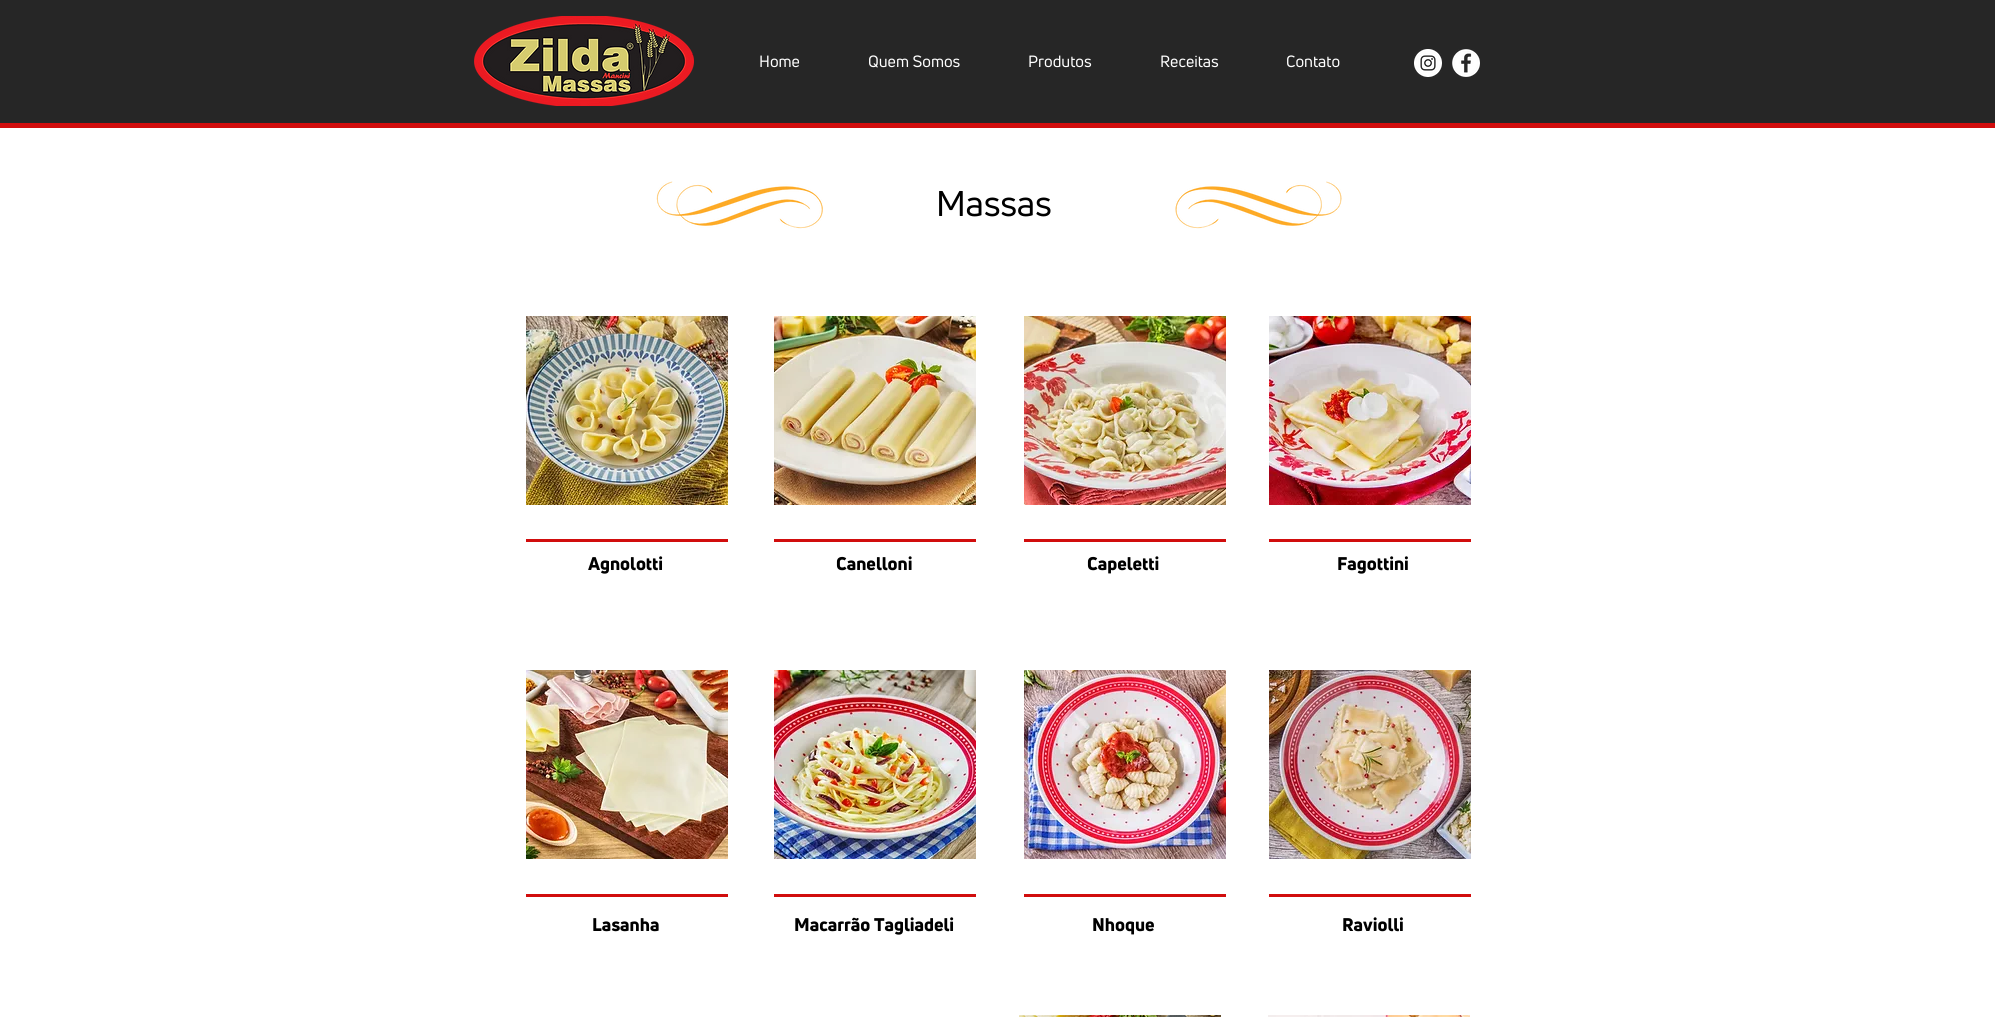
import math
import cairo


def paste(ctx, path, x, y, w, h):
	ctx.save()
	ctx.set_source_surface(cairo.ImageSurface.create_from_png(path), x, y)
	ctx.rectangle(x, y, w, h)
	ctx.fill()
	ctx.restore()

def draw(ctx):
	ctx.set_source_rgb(1, 1, 1)
	ctx.paint()
	ctx.set_source_rgb(0.149, 0.149, 0.149)
	ctx.rectangle(0, 0, 1995, 123)
	ctx.fill()
	ctx.set_source_rgb(0.82, 0.051, 0.051)
	ctx.rectangle(0, 123, 1995, 5)
	ctx.fill()
	paste(ctx, 'media/1.png', 474, 16, 220, 90)
	ctx.select_font_face('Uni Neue')
	ctx.set_font_size(16)
	ctx.set_source_rgb(1, 1, 1)
	for x, y, s in [
		(759, 67, 'Home'),
		(868, 67, 'Quem Somos'),
		(1028, 67, 'Produtos'),
		(1160, 67, 'Receitas'),
		(1286, 67, 'Contato'),
	]:
		ctx.move_to(x, y)
		ctx.show_text(s)
	paste(ctx, 'media/2.png', 1414, 49, 28, 28)
	paste(ctx, 'media/3.png', 1452, 49, 28, 28)
	paste(ctx, 'media/4.png', 656, 181, 167, 48)
	ctx.set_font_size(35)
	ctx.set_source_rgb(0, 0, 0)
	ctx.move_to(936, 216)
	ctx.show_text('Massas')
	paste(ctx, 'media/5.png', 1175, 181, 167, 48)
	paste(ctx, 'media/6.png', 526, 316, 202, 189)
	paste(ctx, 'media/7.png', 774, 316, 202, 189)
	paste(ctx, 'media/8.png', 1024, 316, 202, 189)
	paste(ctx, 'media/9.png', 1269, 316, 202, 189)
	ctx.set_source_rgb(0.82, 0.051, 0.051)
	ctx.rectangle(526, 539, 202, 3)
	ctx.rectangle(774, 539, 202, 3)
	ctx.rectangle(1024, 539, 202, 3)
	ctx.rectangle(1269, 539, 202, 3)
	ctx.fill()
	ctx.select_font_face('Uni Neue Black')
	ctx.set_font_size(18)
	ctx.set_source_rgb(0, 0, 0)
	for x, y, s in [
		(588, 570, 'Agnolotti'),
		(836, 570, 'Canelloni'),
		(1087, 570, 'Capeletti'),
		(1337, 570, 'Fagottini'),
	]:
		ctx.move_to(x, y)
		ctx.show_text(s)
	paste(ctx, 'media/10.png', 526, 670, 202, 189)
	paste(ctx, 'media/11.png', 774, 670, 202, 189)
	paste(ctx, 'media/12.png', 1024, 670, 202, 189)
	paste(ctx, 'media/13.png', 1269, 670, 202, 189)
	ctx.set_source_rgb(0.82, 0.051, 0.051)
	ctx.rectangle(526, 894, 202, 3)
	ctx.rectangle(774, 894, 202, 3)
	ctx.rectangle(1024, 894, 202, 3)
	ctx.rectangle(1269, 894, 202, 3)
	ctx.fill()
	ctx.set_source_rgb(0, 0, 0)
	for x, y, s in [
		(592, 931, 'Lasanha'),
		(794, 931, 'Macarrão Tagliadeli'),
		(1092, 931, 'Nhoque'),
		(1342, 931, 'Raviolli'),
	]:
		ctx.move_to(x, y)
		ctx.show_text(s)
	paste(ctx, 'media/14.png', 1019, 1015, 202, 2)
	paste(ctx, 'media/15.png', 1268, 1015, 202, 2)


surface = cairo.ImageSurface(cairo.FORMAT_RGB24, 1995, 1017)
ctx = cairo.Context(surface)
options = cairo.FontOptions()
options.set_hint_metrics(cairo.HINT_METRICS_OFF)
options.set_hint_style(cairo.HINT_STYLE_NONE)
ctx.set_font_options(options)
ctx.set_miter_limit(4)
draw(ctx)
surface.write_to_png('image.png')
